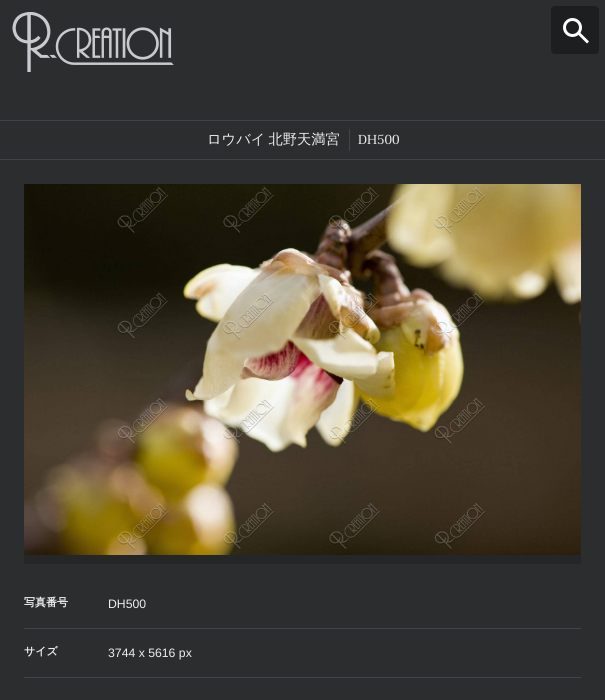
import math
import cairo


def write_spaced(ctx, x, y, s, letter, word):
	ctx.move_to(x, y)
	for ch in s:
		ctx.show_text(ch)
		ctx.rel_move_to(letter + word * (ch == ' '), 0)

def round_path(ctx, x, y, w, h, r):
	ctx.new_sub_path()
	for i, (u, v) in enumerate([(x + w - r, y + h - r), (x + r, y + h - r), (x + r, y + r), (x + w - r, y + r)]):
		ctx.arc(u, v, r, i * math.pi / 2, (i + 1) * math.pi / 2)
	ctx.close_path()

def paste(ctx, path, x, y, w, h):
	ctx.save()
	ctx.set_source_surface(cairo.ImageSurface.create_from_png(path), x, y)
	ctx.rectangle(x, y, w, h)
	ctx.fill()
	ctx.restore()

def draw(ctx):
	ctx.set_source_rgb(0.173, 0.176, 0.184)
	ctx.paint()
	paste(ctx, 'media/1.png', 12, 12, 162, 60)
	ctx.set_source_rgb(0.114, 0.118, 0.122)
	round_path(ctx, 551, 6, 48, 48, 4)
	ctx.fill()
	ctx.arc(572.5, 27.5, 8, 0, 2 * math.pi)
	ctx.set_source_rgb(1, 1, 1)
	ctx.set_line_width(3)
	ctx.stroke()
	ctx.new_path()
	ctx.move_to(579, 31.5)
	ctx.line_to(589, 41.5)
	ctx.line_to(587, 43.5)
	ctx.line_to(577, 33.5)
	ctx.close_path()
	ctx.fill()
	ctx.set_source_rgb(0.251, 0.271, 0.29)
	ctx.rectangle(0, 120, 605, 1)
	ctx.fill()
	ctx.rectangle(0, 159, 605, 1)
	ctx.fill()
	ctx.select_font_face('WenQuanYi Zen Hei Medium')
	ctx.set_font_size(14.25)
	ctx.set_source_rgb(0.929, 0.929, 0.929)
	write_spaced(ctx, 207, 144, 'ロウバイ 北野天満宮', 0, -1)
	ctx.select_font_face('Taviraj')
	ctx.set_font_size(13)
	ctx.move_to(358, 144)
	ctx.show_text('DH500')
	ctx.set_source_rgb(0.251, 0.271, 0.29)
	ctx.rectangle(349, 129, 1, 22)
	ctx.fill()
	ctx.set_source_rgb(0.145, 0.149, 0.157)
	ctx.rectangle(24, 555, 557, 9)
	ctx.fill()
	paste(ctx, 'media/2.png', 24, 184, 557, 371)
	ctx.set_source_rgb(0.251, 0.271, 0.29)
	ctx.rectangle(24, 628, 557, 1)
	ctx.fill()
	ctx.select_font_face('WenQuanYi Zen Hei', cairo.FONT_SLANT_NORMAL, cairo.FONT_WEIGHT_BOLD)
	ctx.set_font_size(11)
	ctx.set_source_rgb(0.929, 0.929, 0.929)
	ctx.move_to(24, 606)
	ctx.show_text('写真番号')
	ctx.select_font_face('Liberation Sans')
	ctx.set_font_size(12.25)
	ctx.move_to(108, 608)
	ctx.show_text('DH500')
	ctx.set_source_rgb(0.251, 0.271, 0.29)
	ctx.rectangle(24, 677, 557, 1)
	ctx.fill()
	ctx.select_font_face('WenQuanYi Zen Hei', cairo.FONT_SLANT_NORMAL, cairo.FONT_WEIGHT_BOLD)
	ctx.set_font_size(11)
	ctx.set_source_rgb(0.929, 0.929, 0.929)
	ctx.move_to(24, 655)
	ctx.show_text('サイズ')
	ctx.select_font_face('Liberation Sans')
	ctx.set_font_size(12.25)
	ctx.move_to(108, 657)
	ctx.show_text('3744 x 5616 px')


surface = cairo.ImageSurface(cairo.FORMAT_RGB24, 605, 700)
ctx = cairo.Context(surface)
options = cairo.FontOptions()
options.set_hint_metrics(cairo.HINT_METRICS_OFF)
options.set_hint_style(cairo.HINT_STYLE_NONE)
ctx.set_font_options(options)
ctx.set_miter_limit(4)
draw(ctx)
surface.write_to_png('image.png')
